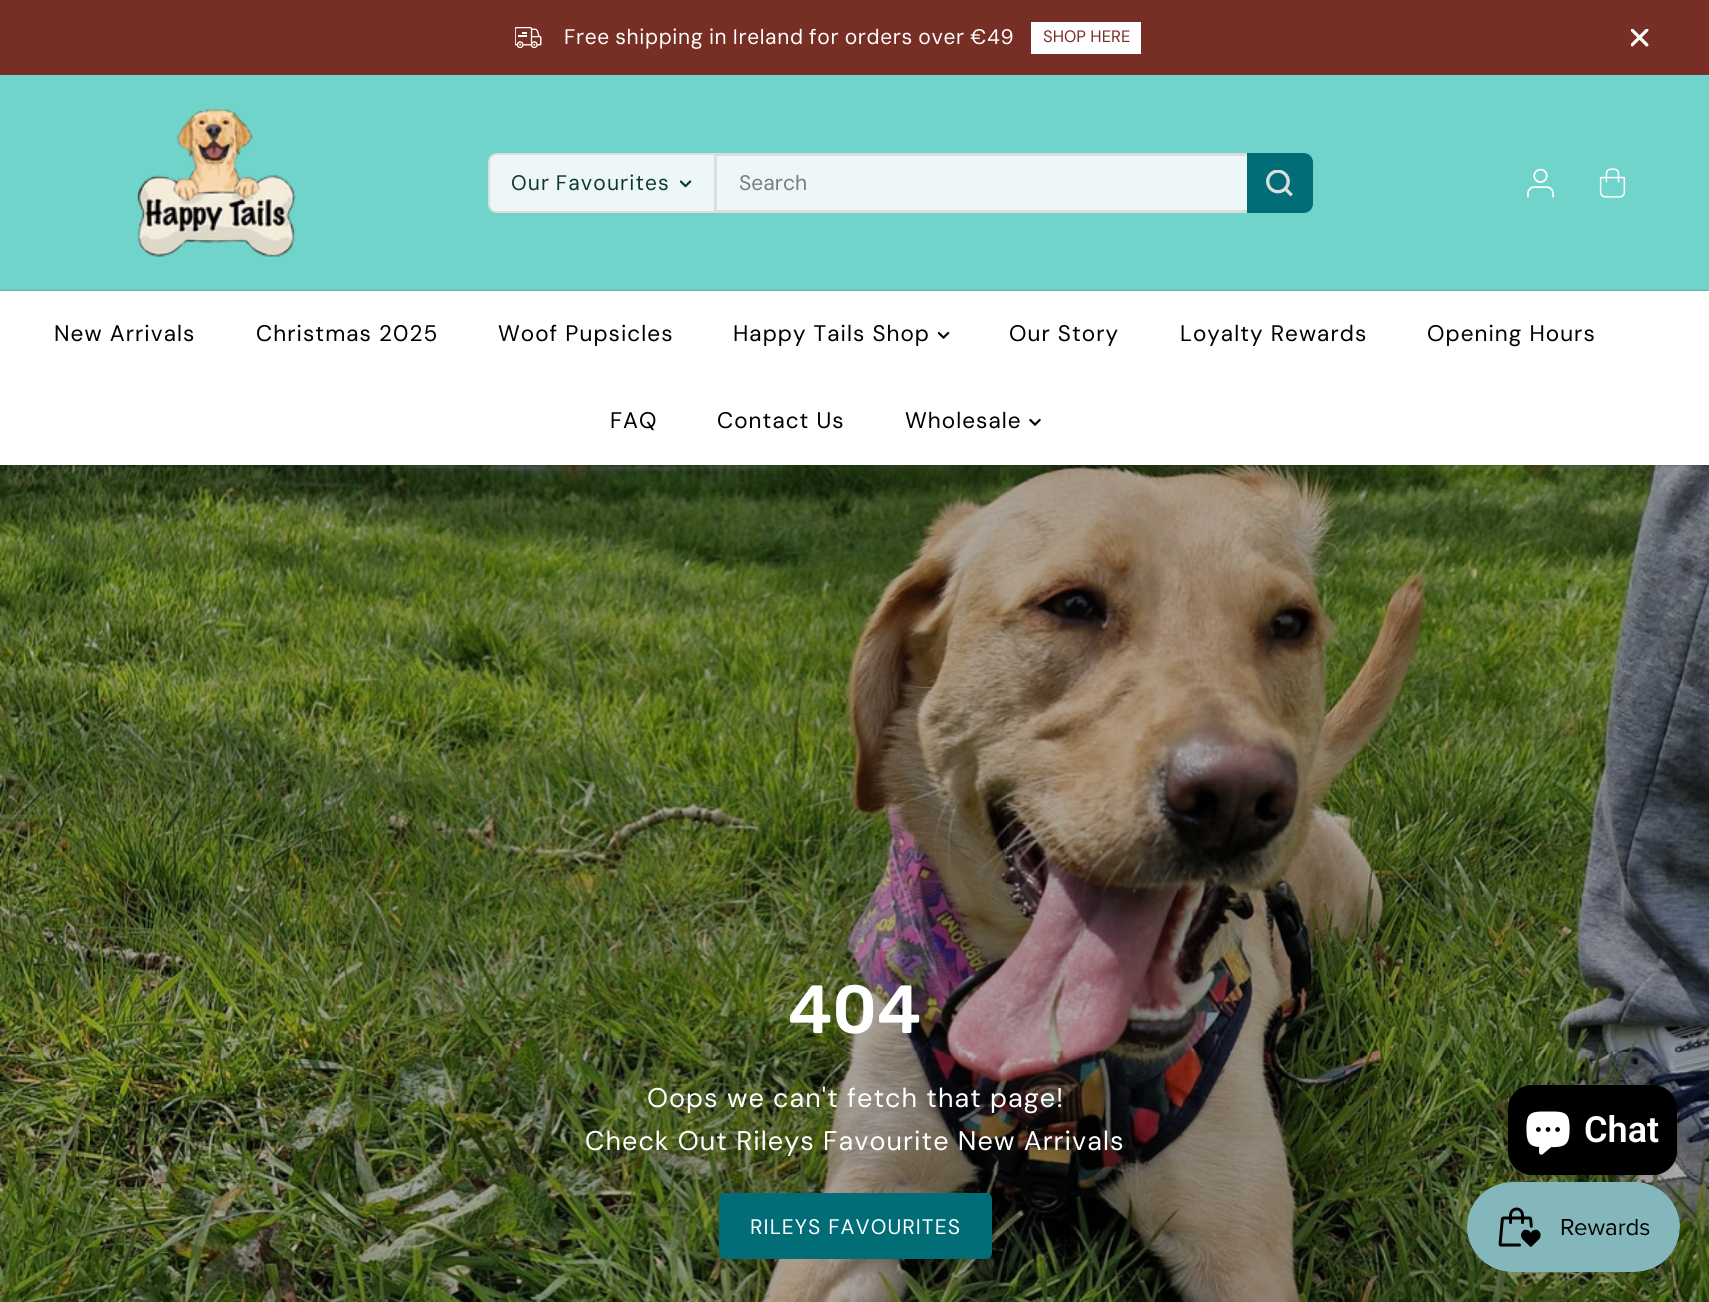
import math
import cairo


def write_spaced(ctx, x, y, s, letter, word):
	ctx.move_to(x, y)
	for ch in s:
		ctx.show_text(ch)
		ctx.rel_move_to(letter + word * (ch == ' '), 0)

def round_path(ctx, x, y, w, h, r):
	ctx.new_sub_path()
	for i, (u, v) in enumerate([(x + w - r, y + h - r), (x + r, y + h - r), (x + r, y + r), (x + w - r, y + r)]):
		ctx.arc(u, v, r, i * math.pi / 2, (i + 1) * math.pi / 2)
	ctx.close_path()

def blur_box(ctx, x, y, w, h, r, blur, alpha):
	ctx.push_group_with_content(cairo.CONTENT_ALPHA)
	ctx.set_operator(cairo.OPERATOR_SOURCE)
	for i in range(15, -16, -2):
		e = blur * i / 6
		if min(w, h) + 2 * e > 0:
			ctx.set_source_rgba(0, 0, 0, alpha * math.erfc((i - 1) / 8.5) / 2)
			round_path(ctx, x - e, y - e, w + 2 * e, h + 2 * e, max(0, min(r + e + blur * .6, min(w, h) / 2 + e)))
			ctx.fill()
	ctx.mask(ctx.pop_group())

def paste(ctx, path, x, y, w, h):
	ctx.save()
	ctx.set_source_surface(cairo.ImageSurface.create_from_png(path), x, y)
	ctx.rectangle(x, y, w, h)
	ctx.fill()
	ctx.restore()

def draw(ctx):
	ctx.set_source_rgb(1, 1, 1)
	ctx.paint()
	ctx.set_source_rgb(0.467, 0.18, 0.145)
	ctx.rectangle(0, 0, 1709, 75)
	ctx.fill()
	paste(ctx, 'media/1.png', 515, 27, 27, 21)
	ctx.select_font_face('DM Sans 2')
	ctx.set_font_size(21)
	ctx.set_source_rgb(1, 1, 1)
	write_spaced(ctx, 564, 44, 'Free shipping in Ireland for orders over €49', 0.6, -0.75)
	ctx.rectangle(1031, 22, 110, 32)
	ctx.fill()
	ctx.set_font_size(16.5)
	ctx.set_source_rgb(0.467, 0.18, 0.145)
	ctx.move_to(1043, 42)
	ctx.show_text('SHOP HERE')
	paste(ctx, 'media/2.png', 1631, 29, 18, 18)
	ctx.set_source_rgb(0.443, 0.831, 0.792)
	ctx.rectangle(0, 75, 1709, 216)
	ctx.fill()
	paste(ctx, 'media/3.png', 137, 108, 159, 149)
	ctx.set_source_rgb(0.929, 0.965, 0.976)
	ctx.new_path()
	ctx.move_to(497, 154)
	ctx.line_to(715, 154)
	ctx.line_to(715, 212)
	ctx.line_to(497, 212)
	ctx.curve_to(492.5, 212, 489, 208.5, 489, 204)
	ctx.line_to(489, 162)
	ctx.curve_to(489, 157.5, 492.5, 154, 497, 154)
	ctx.close_path()
	ctx.fill_preserve()
	ctx.set_source_rgb(0.867, 0.867, 0.867)
	ctx.stroke()
	ctx.set_font_size(21)
	ctx.set_source_rgb(0.055, 0.227, 0.176)
	write_spaced(ctx, 511, 190, 'Our Favourites', 1.05, -1)
	paste(ctx, 'media/4.png', 680, 180, 12, 8)
	ctx.set_source_rgb(0.929, 0.965, 0.976)
	ctx.new_path()
	ctx.move_to(714, 153)
	ctx.line_to(1304, 153)
	ctx.curve_to(1309, 153, 1313, 157, 1313, 162)
	ctx.line_to(1313, 204)
	ctx.curve_to(1313, 209, 1309, 213, 1304, 213)
	ctx.line_to(714, 213)
	ctx.close_path()
	ctx.fill()
	ctx.set_source_rgb(0.867, 0.867, 0.867)
	ctx.set_fill_rule(cairo.FILL_RULE_EVEN_ODD)
	ctx.new_path()
	ctx.move_to(714, 153)
	ctx.line_to(714, 213)
	ctx.line_to(1304, 213)
	ctx.curve_to(1309, 213, 1313, 209, 1313, 204)
	ctx.line_to(1313, 162)
	ctx.curve_to(1313, 157, 1309, 153, 1304, 153)
	ctx.close_path()
	ctx.move_to(717, 156)
	ctx.line_to(717, 210)
	ctx.line_to(1310, 210)
	ctx.line_to(1310, 156)
	ctx.close_path()
	ctx.fill()
	ctx.set_source_rgb(0.467, 0.482, 0.49)
	ctx.move_to(739, 190)
	ctx.show_text('Search')
	ctx.set_source_rgb(0, 0.427, 0.467)
	ctx.new_path()
	ctx.move_to(1247, 153)
	ctx.line_to(1304, 153)
	ctx.curve_to(1309, 153, 1313, 157, 1313, 162)
	ctx.line_to(1313, 204)
	ctx.curve_to(1313, 209, 1309, 213, 1304, 213)
	ctx.line_to(1247, 213)
	ctx.close_path()
	ctx.fill()
	paste(ctx, 'media/5.png', 1266, 170, 27, 27)
	paste(ctx, 'media/6.png', 1527, 168, 27, 30)
	paste(ctx, 'media/7.png', 1599, 168, 27, 30)
	paste(ctx, 'media/10.png', 0, 465, 1709, 837)
	ctx.set_source_rgb(0, 0, 0)
	blur_box(ctx, -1, 291, 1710, 174, 0, 1.5, 0.3)
	ctx.set_source_rgb(1, 1, 1)
	ctx.rectangle(0, 291, 1709, 174)
	ctx.fill()
	ctx.select_font_face('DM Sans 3')
	ctx.set_font_size(22.5)
	ctx.set_source_rgb(0, 0, 0)
	for x, y, s in [
		(54, 341, 'New Arrivals'),
		(256, 341, 'Christmas 2025'),
		(498, 341, 'Woof Pupsicles'),
		(733, 341, 'Happy Tails Shop'),
	]:
		write_spaced(ctx, x, y, s, 1.05, 0)
	paste(ctx, 'media/8.png', 938, 331, 12, 8)
	for x, y, s in [
		(1009, 341, 'Our Story'),
		(1180, 341, 'Loyalty Rewards'),
		(1427, 341, 'Opening Hours'),
		(610, 428, 'FAQ'),
		(717, 428, 'Contact Us'),
		(905, 428, 'Wholesale'),
	]:
		write_spaced(ctx, x, y, s, 1.05, 0)
	paste(ctx, 'media/9.png', 1029, 418, 12, 8)
	ctx.select_font_face('Rubik Medium')
	ctx.set_font_size(68)
	ctx.set_source_rgb(1, 1, 1)
	ctx.move_to(788, 1033)
	ctx.show_text('404')
	ctx.select_font_face('DM Sans')
	ctx.set_font_size(27)
	write_spaced(ctx, 647, 1107, 'Oops we can\'t fetch that page!', 1.05, 0)
	write_spaced(ctx, 585, 1150, 'Check Out Rileys Favourite New Arrivals', 1.05, 0)
	ctx.set_source_rgb(0, 0.427, 0.467)
	round_path(ctx, 720, 1194, 271, 64, 5)
	ctx.fill_preserve()
	ctx.stroke()
	ctx.select_font_face('DM Sans 2')
	ctx.set_font_size(21)
	ctx.set_source_rgb(1, 1, 1)
	write_spaced(ctx, 750, 1234, 'RILEYS FAVOURITES', 1.05, 0)
	ctx.set_source_rgb(0, 0, 0)
	blur_box(ctx, 1508, 1085, 169, 90, 24, 4, 0.15)
	ctx.set_source_rgb(0, 0, 0)
	round_path(ctx, 1508, 1085, 169, 90, 24)
	ctx.fill()
	paste(ctx, 'media/11.png', 1526, 1111, 44, 44)
	ctx.select_font_face('Roboto SemiBold')
	ctx.set_font_size(36)
	ctx.set_source_rgb(1, 1, 1)
	ctx.move_to(1584, 1142)
	ctx.show_text('Chat')
	paste(ctx, 'media/12.png', 1467, 1182, 213, 90)


surface = cairo.ImageSurface(cairo.FORMAT_RGB24, 1709, 1302)
ctx = cairo.Context(surface)
options = cairo.FontOptions()
options.set_hint_metrics(cairo.HINT_METRICS_OFF)
options.set_hint_style(cairo.HINT_STYLE_NONE)
ctx.set_font_options(options)
ctx.set_miter_limit(4)
draw(ctx)
surface.write_to_png('image.png')
